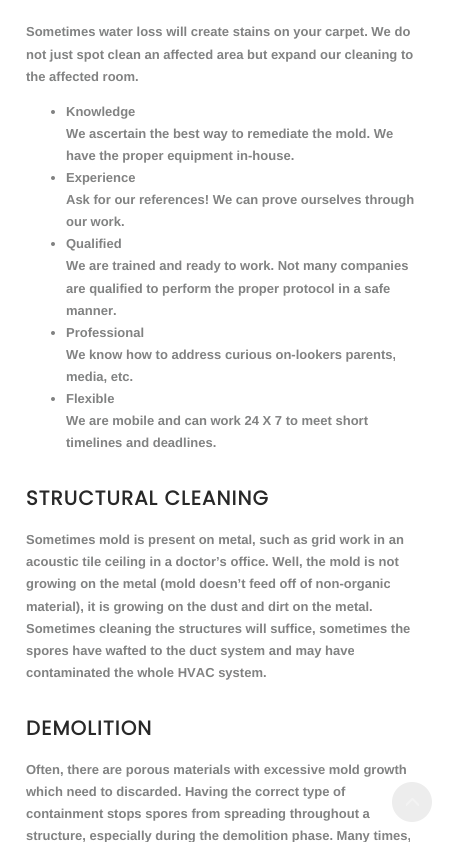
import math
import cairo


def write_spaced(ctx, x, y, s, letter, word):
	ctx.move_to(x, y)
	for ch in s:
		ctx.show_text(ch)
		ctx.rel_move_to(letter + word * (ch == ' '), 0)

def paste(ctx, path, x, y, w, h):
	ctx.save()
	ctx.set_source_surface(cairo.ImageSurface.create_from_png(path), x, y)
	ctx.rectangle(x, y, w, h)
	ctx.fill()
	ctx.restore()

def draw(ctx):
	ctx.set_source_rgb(1, 1, 1)
	ctx.paint()
	ctx.select_font_face('Liberation Sans', cairo.FONT_SLANT_NORMAL, cairo.FONT_WEIGHT_BOLD)
	ctx.set_font_size(13)
	ctx.set_source_rgb(0.506, 0.51, 0.51)
	for x, y, s in [
		(26, 36, 'Sometimes water loss will create stains on your carpet. We do'),
		(26, 59, 'not just spot clean an affected area but expand our cleaning to'),
		(26, 81, 'the affected room.'),
	]:
		ctx.move_to(x, y)
		ctx.show_text(s)
	ctx.new_path()
	ctx.arc(53, 112, 2, 0, 2 * math.pi)
	ctx.fill()
	for x, y, s in [
		(66, 116, 'Knowledge'),
		(66, 138, 'We ascertain the best way to remediate the mold. We'),
		(66, 160, 'have the proper equipment in-house.'),
	]:
		ctx.move_to(x, y)
		ctx.show_text(s)
	ctx.new_path()
	ctx.arc(53, 178, 2, 0, 2 * math.pi)
	ctx.fill()
	for x, y, s in [
		(66, 182, 'Experience'),
		(66, 204, 'Ask for our references! We can prove ourselves through'),
		(66, 226, 'our work.'),
	]:
		ctx.move_to(x, y)
		ctx.show_text(s)
	ctx.new_path()
	ctx.arc(53, 244, 2, 0, 2 * math.pi)
	ctx.fill()
	for x, y, s in [
		(66, 248, 'Qualified'),
		(66, 270, 'We are trained and ready to work. Not many companies'),
		(66, 293, 'are qualified to perform the proper protocol in a safe'),
		(66, 315, 'manner.'),
	]:
		ctx.move_to(x, y)
		ctx.show_text(s)
	ctx.new_path()
	ctx.arc(53, 333, 2, 0, 2 * math.pi)
	ctx.fill()
	for x, y, s in [
		(66, 337, 'Professional'),
		(66, 359, 'We know how to address curious on-lookers parents,'),
		(66, 381, 'media, etc.'),
	]:
		ctx.move_to(x, y)
		ctx.show_text(s)
	ctx.new_path()
	ctx.arc(53, 399, 2, 0, 2 * math.pi)
	ctx.fill()
	for x, y, s in [
		(66, 403, 'Flexible'),
		(66, 425, 'We are mobile and can work 24 X 7 to meet short'),
		(66, 447, 'timelines and deadlines.'),
	]:
		ctx.move_to(x, y)
		ctx.show_text(s)
	ctx.select_font_face('Poppins', cairo.FONT_SLANT_NORMAL, cairo.FONT_WEIGHT_BOLD)
	ctx.set_font_size(20)
	ctx.set_source_rgb(0.157, 0.157, 0.157)
	write_spaced(ctx, 26, 505, 'STRUCTURAL CLEANING', 1, 0)
	ctx.select_font_face('Liberation Sans', cairo.FONT_SLANT_NORMAL, cairo.FONT_WEIGHT_BOLD)
	ctx.set_font_size(13)
	ctx.set_source_rgb(0.506, 0.51, 0.51)
	for x, y, s in [
		(26, 544, 'Sometimes mold is present on metal, such as grid work in an'),
		(26, 566, 'acoustic tile ceiling in a doctor’s office. Well, the mold is not'),
		(26, 588, 'growing on the metal (mold doesn’t feed off of non-organic'),
		(26, 611, 'material), it is growing on the dust and dirt on the metal.'),
		(26, 633, 'Sometimes cleaning the structures will suffice, sometimes the'),
		(26, 655, 'spores have wafted to the duct system and may have'),
		(26, 677, 'contaminated the whole HVAC system.'),
	]:
		ctx.move_to(x, y)
		ctx.show_text(s)
	ctx.select_font_face('Poppins', cairo.FONT_SLANT_NORMAL, cairo.FONT_WEIGHT_BOLD)
	ctx.set_font_size(20)
	ctx.set_source_rgb(0.157, 0.157, 0.157)
	write_spaced(ctx, 26, 735, 'DEMOLITION', 1, 0)
	ctx.select_font_face('Liberation Sans', cairo.FONT_SLANT_NORMAL, cairo.FONT_WEIGHT_BOLD)
	ctx.set_font_size(13)
	ctx.set_source_rgb(0.506, 0.51, 0.51)
	for x, y, s in [
		(26, 774, 'Often, there are porous materials with excessive mold growth'),
		(26, 796, 'which need to discarded. Having the correct type of'),
		(26, 818, 'containment stops spores from spreading throughout a'),
		(26, 840, 'structure, especially during the demolition phase. Many times,'),
	]:
		ctx.move_to(x, y)
		ctx.show_text(s)
	ctx.set_source_rgb(0.929, 0.929, 0.929)
	ctx.new_path()
	ctx.arc(412, 802, 20, 0, 2 * math.pi)
	ctx.fill()
	paste(ctx, 'media/1.png', 406, 798, 13, 8)


surface = cairo.ImageSurface(cairo.FORMAT_RGB24, 452, 842)
ctx = cairo.Context(surface)
options = cairo.FontOptions()
options.set_hint_metrics(cairo.HINT_METRICS_OFF)
options.set_hint_style(cairo.HINT_STYLE_NONE)
ctx.set_font_options(options)
ctx.set_miter_limit(4)
draw(ctx)
surface.write_to_png('image.png')
